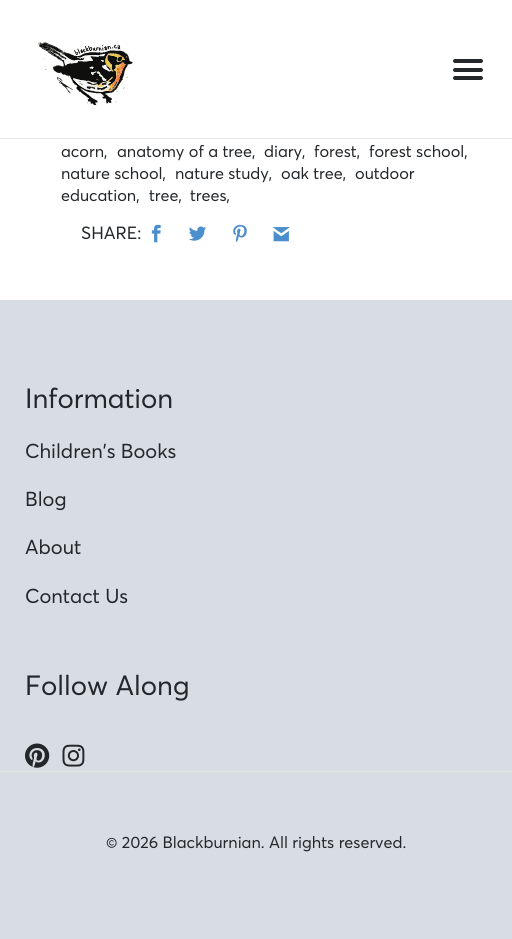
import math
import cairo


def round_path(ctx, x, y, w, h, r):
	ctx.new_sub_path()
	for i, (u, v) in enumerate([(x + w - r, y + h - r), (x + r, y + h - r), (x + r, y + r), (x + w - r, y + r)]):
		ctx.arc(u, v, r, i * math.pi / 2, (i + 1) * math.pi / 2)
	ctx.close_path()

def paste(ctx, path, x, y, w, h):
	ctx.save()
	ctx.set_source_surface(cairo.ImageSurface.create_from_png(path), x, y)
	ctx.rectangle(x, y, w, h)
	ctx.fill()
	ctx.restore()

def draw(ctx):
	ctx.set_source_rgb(1, 1, 1)
	ctx.paint()
	ctx.set_source_rgb(0.898, 0.898, 0.898)
	ctx.rectangle(0, 138, 512, 1)
	ctx.fill()
	paste(ctx, 'media/1.png', 37, 42, 96, 63)
	ctx.set_source_rgb(0.141, 0.153, 0.165)
	round_path(ctx, 453, 59, 30, 4, 2)
	ctx.fill()
	round_path(ctx, 453, 68, 30, 4, 2)
	ctx.fill()
	round_path(ctx, 453, 76, 30, 4, 2)
	ctx.fill()
	ctx.select_font_face('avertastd')
	ctx.set_font_size(16.25)
	for x, y, s in [
		(61, 157, 'acorn,'),
		(117, 157, 'anatomy of a tree,'),
		(264, 157, 'diary,'),
		(314, 157, 'forest,'),
		(369, 157, 'forest school,'),
		(61, 179, 'nature school,'),
		(175, 179, 'nature study,'),
		(281, 179, 'oak tree,'),
		(355, 179, 'outdoor'),
		(61, 201, 'education,'),
		(149, 201, 'tree,'),
		(190, 201, 'trees,'),
	]:
		ctx.move_to(x, y)
		ctx.show_text(s)
	ctx.set_font_size(17.5)
	ctx.move_to(81, 239)
	ctx.show_text('SHARE:')
	paste(ctx, 'media/2.png', 151, 224, 10, 19)
	paste(ctx, 'media/3.png', 189, 226, 18, 15)
	paste(ctx, 'media/4.png', 233, 224, 14, 19)
	paste(ctx, 'media/5.png', 272, 227, 18, 15)
	ctx.set_source_rgb(0.847, 0.867, 0.89)
	ctx.rectangle(0, 300, 512, 639)
	ctx.fill()
	ctx.set_source_rgb(0.898, 0.898, 0.898)
	ctx.rectangle(0, 771, 512, 1)
	ctx.fill()
	ctx.set_font_size(27.5)
	ctx.set_source_rgb(0.141, 0.153, 0.165)
	ctx.move_to(25, 408)
	ctx.show_text('Information')
	ctx.set_font_size(20)
	for x, y, s in [
		(25, 458, 'Children’s Books'),
		(25, 506, 'Blog'),
		(25, 554, 'About'),
		(25, 603, 'Contact Us'),
	]:
		ctx.move_to(x, y)
		ctx.show_text(s)
	ctx.set_font_size(27.5)
	ctx.move_to(25, 695)
	ctx.show_text('Follow Along')
	paste(ctx, 'media/6.png', 25, 743, 25, 25)
	paste(ctx, 'media/7.png', 62, 744, 23, 23)
	ctx.set_font_size(16.25)
	ctx.move_to(106, 848)
	ctx.show_text('© 2026 Blackburnian. All rights reserved.')


surface = cairo.ImageSurface(cairo.FORMAT_RGB24, 512, 939)
ctx = cairo.Context(surface)
options = cairo.FontOptions()
options.set_hint_metrics(cairo.HINT_METRICS_OFF)
options.set_hint_style(cairo.HINT_STYLE_NONE)
ctx.set_font_options(options)
ctx.set_miter_limit(4)
draw(ctx)
surface.write_to_png('image.png')
